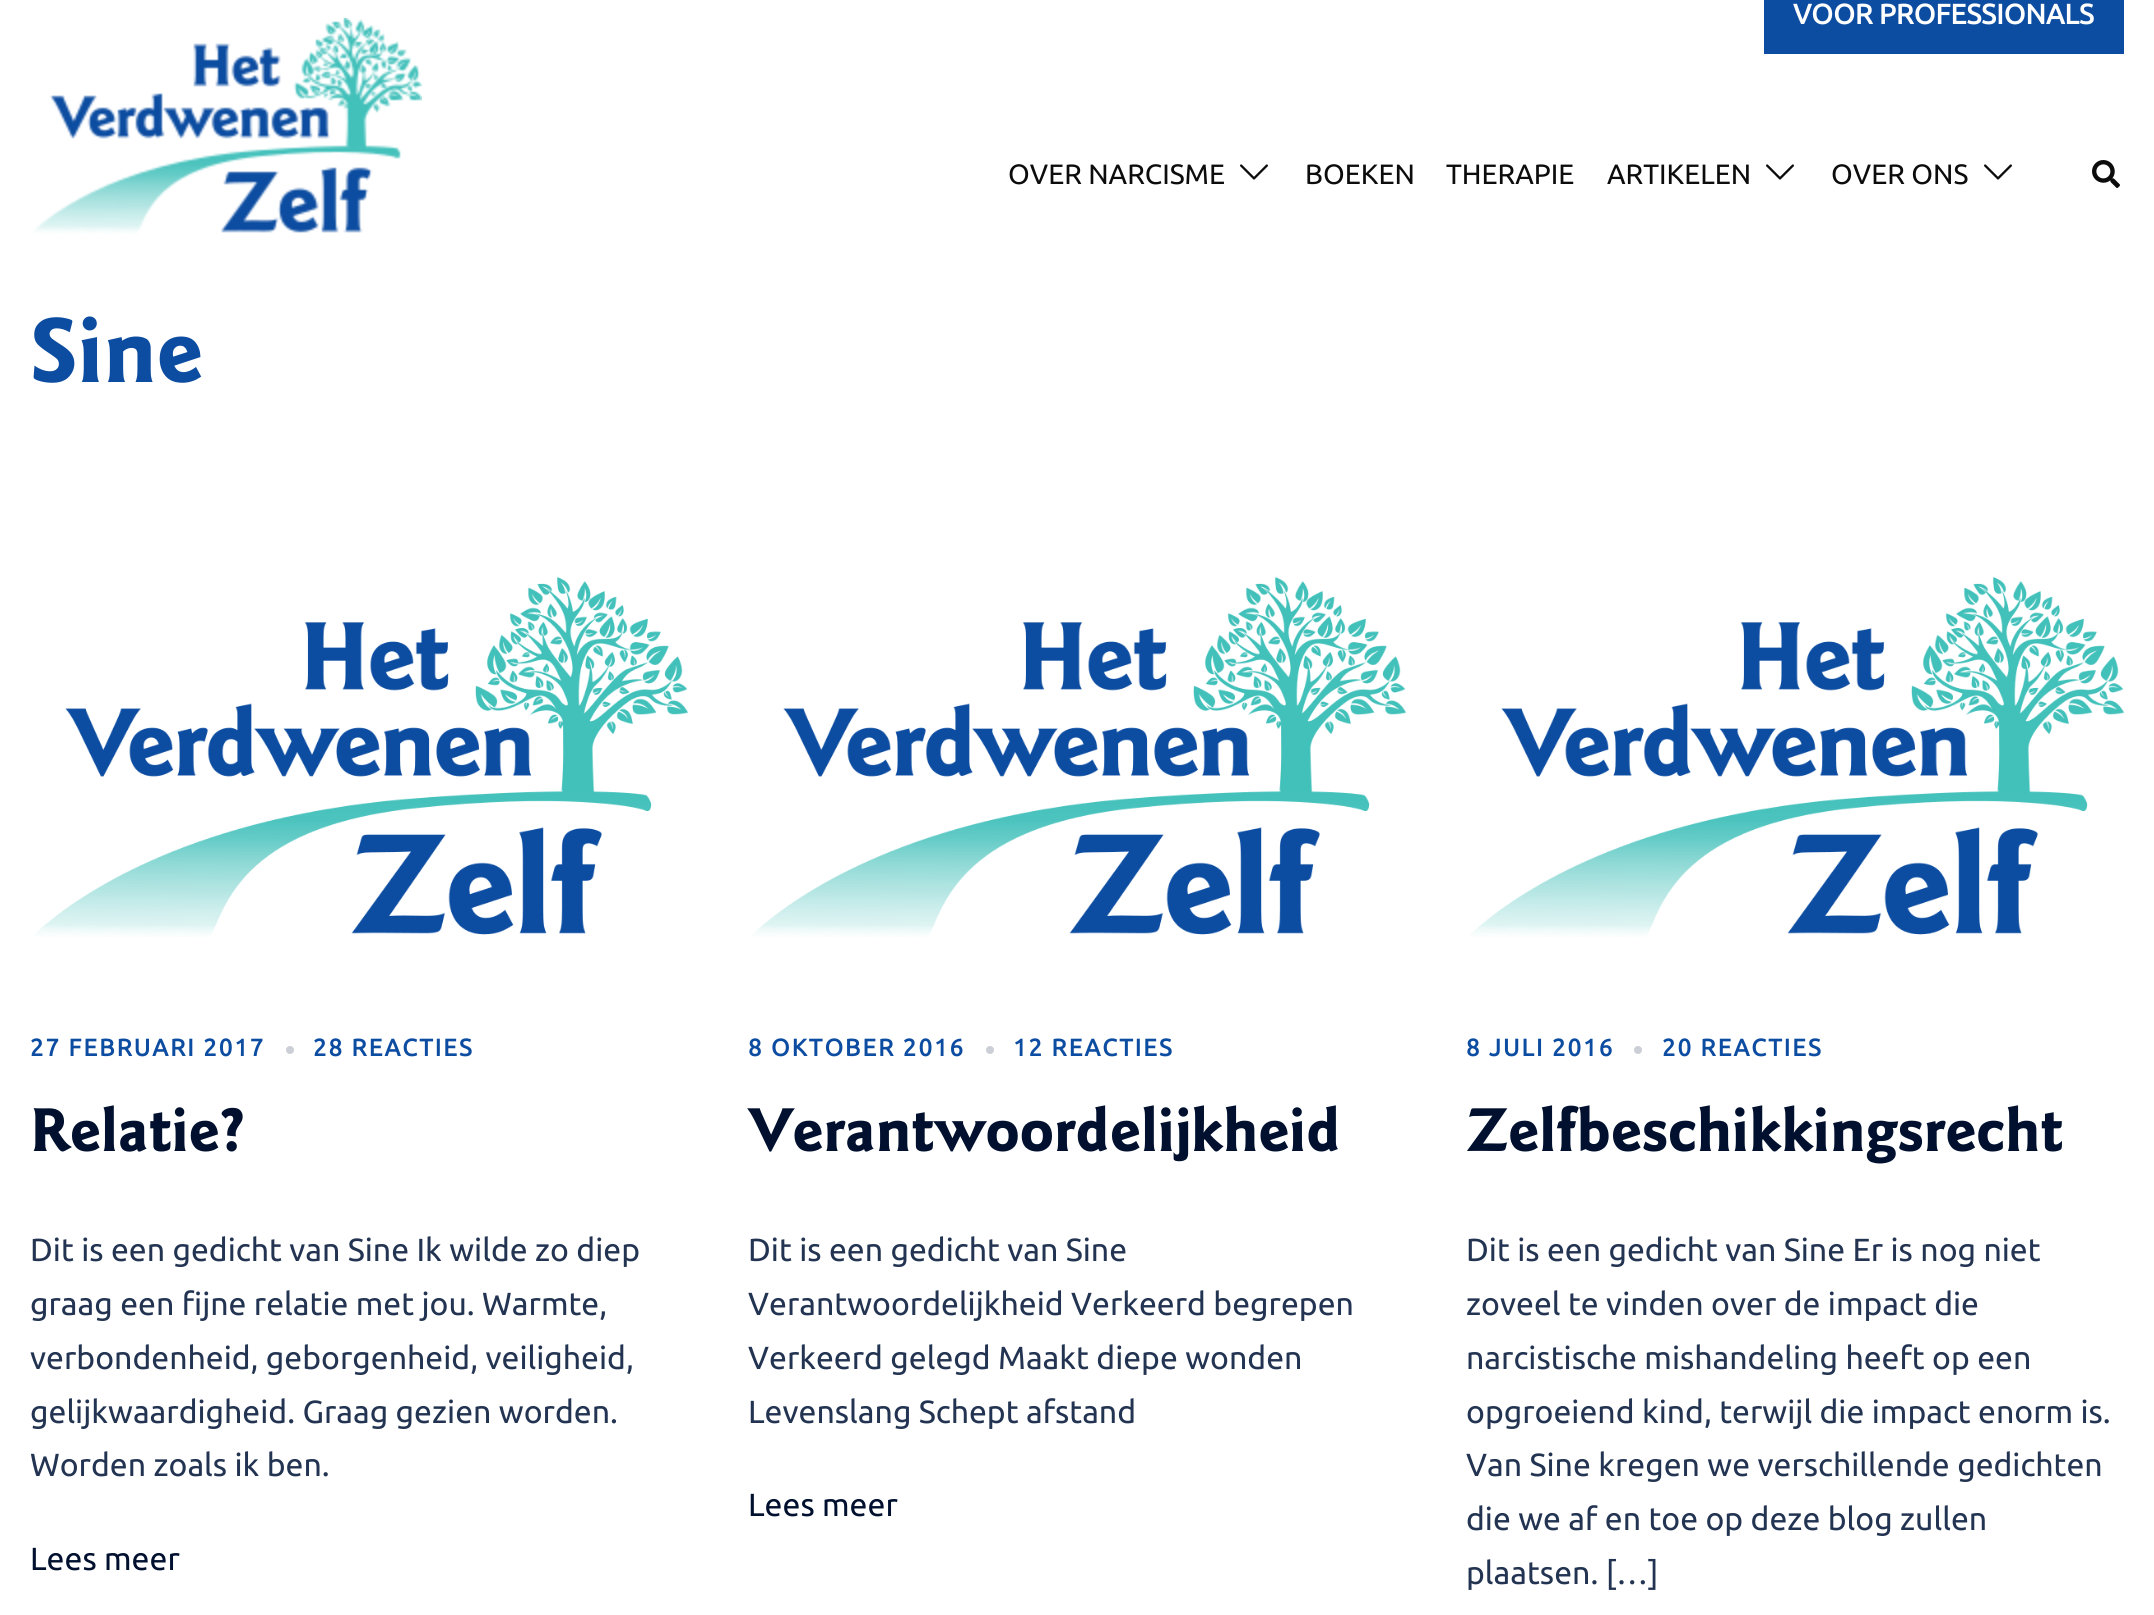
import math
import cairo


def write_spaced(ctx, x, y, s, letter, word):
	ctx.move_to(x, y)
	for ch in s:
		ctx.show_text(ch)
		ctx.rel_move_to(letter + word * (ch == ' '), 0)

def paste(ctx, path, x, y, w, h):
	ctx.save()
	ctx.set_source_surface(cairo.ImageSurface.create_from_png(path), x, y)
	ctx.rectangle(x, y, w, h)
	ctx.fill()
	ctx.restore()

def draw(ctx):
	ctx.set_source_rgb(1, 1, 1)
	ctx.paint()
	ctx.set_source_rgb(0.051, 0.302, 0.631)
	ctx.rectangle(1764, 0, 360, 54)
	ctx.fill()
	ctx.select_font_face('Ubuntu', cairo.FONT_SLANT_NORMAL, cairo.FONT_WEIGHT_BOLD)
	ctx.set_font_size(28)
	ctx.set_source_rgb(1, 1, 1)
	ctx.move_to(1793, 24)
	ctx.show_text('VOOR PROFESSIONALS')
	paste(ctx, 'media/1.png', 33, 18, 389, 216)
	ctx.select_font_face('Ubuntu')
	ctx.set_source_rgb(0.047, 0.047, 0.047)
	ctx.move_to(1008, 184)
	ctx.show_text('OVER NARCISME')
	paste(ctx, 'media/2.png', 1240, 164, 28, 16)
	for x, y, s in [
		(1305, 184, 'BOEKEN'),
		(1446, 184, 'THERAPIE'),
		(1607, 184, 'ARTIKELEN'),
	]:
		ctx.move_to(x, y)
		ctx.show_text(s)
	paste(ctx, 'media/2.png', 1766, 164, 28, 16)
	ctx.move_to(1831, 184)
	ctx.show_text('OVER ONS')
	paste(ctx, 'media/2.png', 1984, 164, 28, 16)
	paste(ctx, 'media/3.png', 2092, 160, 28, 28)
	ctx.select_font_face('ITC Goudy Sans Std', cairo.FONT_SLANT_NORMAL, cairo.FONT_WEIGHT_BOLD)
	ctx.set_font_size(96)
	ctx.set_source_rgb(0.051, 0.302, 0.631)
	ctx.move_to(30, 382)
	ctx.show_text('Sine')
	paste(ctx, 'media/4.png', 34, 577, 654, 360)
	ctx.select_font_face('Ubuntu', cairo.FONT_SLANT_NORMAL, cairo.FONT_WEIGHT_BOLD)
	ctx.set_font_size(24)
	write_spaced(ctx, 30, 1056, '27 FEBRUARI 2017', 2, 0)
	ctx.set_source_rgb(0.8, 0.812, 0.835)
	ctx.new_path()
	ctx.arc(290, 1050, 4, 0, 2 * math.pi)
	ctx.fill()
	ctx.set_source_rgb(0.051, 0.302, 0.631)
	write_spaced(ctx, 313, 1056, '28 REACTIES', 2, 0)
	ctx.select_font_face('ITC Goudy Sans Std', cairo.FONT_SLANT_NORMAL, cairo.FONT_WEIGHT_BOLD)
	ctx.set_font_size(64)
	ctx.set_source_rgb(0, 0.063, 0.18)
	ctx.move_to(30, 1151)
	ctx.show_text('Relatie?')
	ctx.select_font_face('Ubuntu')
	ctx.set_font_size(32)
	ctx.set_source_rgb(0.137, 0.204, 0.322)
	for x, y, s in [
		(30, 1261, 'Dit is een gedicht van Sine Ik wilde zo diep'),
		(30, 1315, 'graag een fijne relatie met jou. Warmte,'),
		(30, 1369, 'verbondenheid, geborgenheid, veiligheid,'),
		(30, 1423, 'gelijkwaardigheid. Graag gezien worden.'),
		(30, 1476, 'Worden zoals ik ben.'),
	]:
		ctx.move_to(x, y)
		ctx.show_text(s)
	ctx.set_source_rgb(0, 0.063, 0.18)
	ctx.move_to(30, 1570)
	ctx.show_text('Lees meer')
	paste(ctx, 'media/5.png', 752, 577, 654, 360)
	ctx.select_font_face('Ubuntu', cairo.FONT_SLANT_NORMAL, cairo.FONT_WEIGHT_BOLD)
	ctx.set_font_size(24)
	ctx.set_source_rgb(0.051, 0.302, 0.631)
	write_spaced(ctx, 748, 1056, '8 OKTOBER 2016', 2, 0)
	ctx.set_source_rgb(0.8, 0.812, 0.835)
	ctx.new_path()
	ctx.arc(990, 1050, 4, 0, 2 * math.pi)
	ctx.fill()
	ctx.set_source_rgb(0.051, 0.302, 0.631)
	write_spaced(ctx, 1013, 1056, '12 REACTIES', 2, 0)
	ctx.select_font_face('ITC Goudy Sans Std', cairo.FONT_SLANT_NORMAL, cairo.FONT_WEIGHT_BOLD)
	ctx.set_font_size(64)
	ctx.set_source_rgb(0, 0.063, 0.18)
	ctx.move_to(748, 1151)
	ctx.show_text('Verantwoordelijkheid')
	ctx.select_font_face('Ubuntu')
	ctx.set_font_size(32)
	ctx.set_source_rgb(0.137, 0.204, 0.322)
	for x, y, s in [
		(748, 1261, 'Dit is een gedicht van Sine'),
		(748, 1315, 'Verantwoordelijkheid Verkeerd begrepen'),
		(748, 1369, 'Verkeerd gelegd Maakt diepe wonden'),
		(748, 1423, 'Levenslang Schept afstand'),
	]:
		ctx.move_to(x, y)
		ctx.show_text(s)
	ctx.set_source_rgb(0, 0.063, 0.18)
	ctx.move_to(748, 1516)
	ctx.show_text('Lees meer')
	paste(ctx, 'media/4.png', 1470, 577, 654, 360)
	ctx.select_font_face('Ubuntu', cairo.FONT_SLANT_NORMAL, cairo.FONT_WEIGHT_BOLD)
	ctx.set_font_size(24)
	ctx.set_source_rgb(0.051, 0.302, 0.631)
	write_spaced(ctx, 1466, 1056, '8 JULI 2016', 2, 0)
	ctx.set_source_rgb(0.8, 0.812, 0.835)
	ctx.new_path()
	ctx.arc(1638, 1050, 4, 0, 2 * math.pi)
	ctx.fill()
	ctx.set_source_rgb(0.051, 0.302, 0.631)
	write_spaced(ctx, 1662, 1056, '20 REACTIES', 2, 0)
	ctx.select_font_face('ITC Goudy Sans Std', cairo.FONT_SLANT_NORMAL, cairo.FONT_WEIGHT_BOLD)
	ctx.set_font_size(64)
	ctx.set_source_rgb(0, 0.063, 0.18)
	ctx.move_to(1466, 1151)
	ctx.show_text('Zelfbeschikkingsrecht')
	ctx.select_font_face('Ubuntu')
	ctx.set_font_size(32)
	ctx.set_source_rgb(0.137, 0.204, 0.322)
	for x, y, s in [
		(1466, 1261, 'Dit is een gedicht van Sine Er is nog niet'),
		(1466, 1315, 'zoveel te vinden over de impact die'),
		(1466, 1369, 'narcistische mishandeling heeft op een'),
		(1466, 1423, 'opgroeiend kind, terwijl die impact enorm is.'),
		(1466, 1476, 'Van Sine kregen we verschillende gedichten'),
		(1466, 1530, 'die we af en toe op deze blog zullen'),
		(1466, 1584, 'plaatsen. […]'),
	]:
		ctx.move_to(x, y)
		ctx.show_text(s)


surface = cairo.ImageSurface(cairo.FORMAT_RGB24, 2154, 1615)
ctx = cairo.Context(surface)
options = cairo.FontOptions()
options.set_hint_metrics(cairo.HINT_METRICS_OFF)
options.set_hint_style(cairo.HINT_STYLE_NONE)
ctx.set_font_options(options)
ctx.set_miter_limit(4)
draw(ctx)
surface.write_to_png('image.png')
